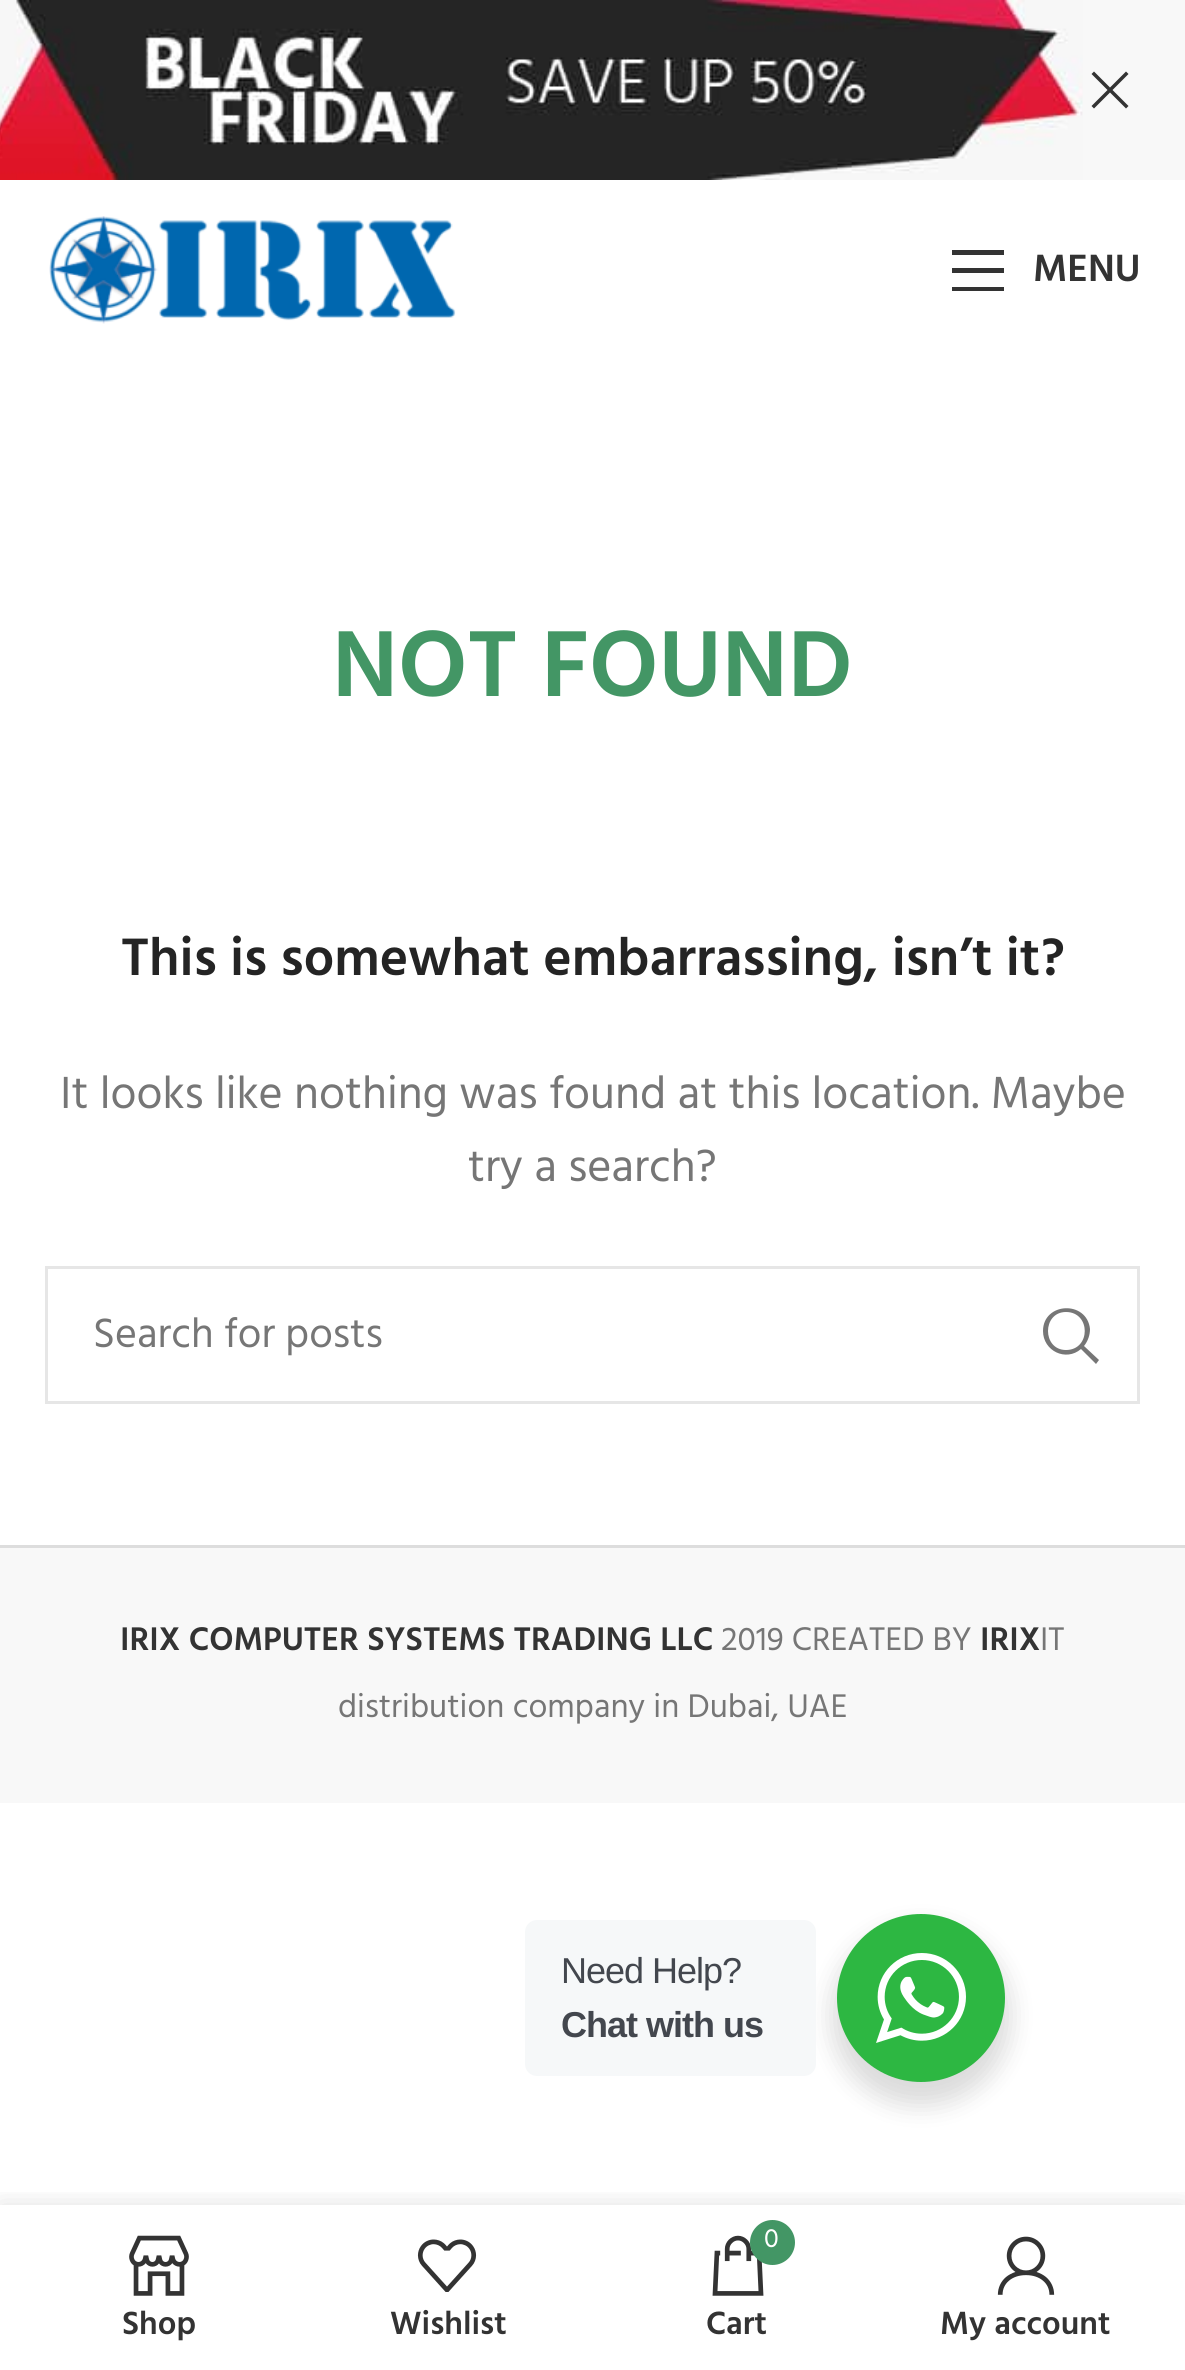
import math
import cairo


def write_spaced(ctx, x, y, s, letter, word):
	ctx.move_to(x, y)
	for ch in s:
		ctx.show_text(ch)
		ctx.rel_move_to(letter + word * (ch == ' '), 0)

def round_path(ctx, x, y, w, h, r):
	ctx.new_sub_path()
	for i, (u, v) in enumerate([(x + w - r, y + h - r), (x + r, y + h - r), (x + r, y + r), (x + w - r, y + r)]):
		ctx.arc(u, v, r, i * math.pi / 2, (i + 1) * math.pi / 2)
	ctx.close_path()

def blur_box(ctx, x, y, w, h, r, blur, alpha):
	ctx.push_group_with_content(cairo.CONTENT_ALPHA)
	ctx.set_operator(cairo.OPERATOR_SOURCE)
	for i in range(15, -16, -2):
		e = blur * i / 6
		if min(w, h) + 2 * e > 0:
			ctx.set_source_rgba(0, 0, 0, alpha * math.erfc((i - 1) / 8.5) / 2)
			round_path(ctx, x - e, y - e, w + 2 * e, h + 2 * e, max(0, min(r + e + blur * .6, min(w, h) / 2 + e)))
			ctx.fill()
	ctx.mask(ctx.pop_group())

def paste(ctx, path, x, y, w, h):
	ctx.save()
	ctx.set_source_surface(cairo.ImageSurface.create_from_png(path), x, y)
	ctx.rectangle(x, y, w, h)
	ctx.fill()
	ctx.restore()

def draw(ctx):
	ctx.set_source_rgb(1, 1, 1)
	ctx.paint()
	ctx.set_source_rgb(0.969, 0.969, 0.969)
	ctx.rectangle(1083, 0, 102, 180)
	ctx.fill()
	paste(ctx, 'media/1.png', 0, 0, 1083, 180)
	ctx.set_source_rgb(0.2, 0.2, 0.2)
	ctx.new_path()
	ctx.move_to(1091.5, 74)
	ctx.line_to(1107.5, 90)
	ctx.line_to(1091.5, 106)
	ctx.line_to(1094, 108.5)
	ctx.line_to(1110, 92.5)
	ctx.line_to(1126, 108.5)
	ctx.line_to(1128.5, 106)
	ctx.line_to(1112.5, 90)
	ctx.line_to(1128.5, 74)
	ctx.line_to(1126, 71.5)
	ctx.line_to(1110, 87.5)
	ctx.line_to(1094, 71.5)
	ctx.close_path()
	ctx.fill()
	paste(ctx, 'media/2.png', 49, 216, 407, 108)
	ctx.new_path()
	ctx.move_to(952, 255)
	ctx.line_to(1004, 255)
	ctx.line_to(1004, 250)
	ctx.line_to(952, 250)
	ctx.close_path()
	ctx.move_to(952, 273)
	ctx.line_to(1004, 273)
	ctx.line_to(1004, 268)
	ctx.line_to(952, 268)
	ctx.close_path()
	ctx.move_to(952, 291)
	ctx.line_to(1004, 291)
	ctx.line_to(1004, 287)
	ctx.line_to(952, 287)
	ctx.close_path()
	ctx.fill()
	ctx.select_font_face('Hind SemiBold')
	ctx.set_font_size(39)
	ctx.move_to(1033, 281)
	ctx.show_text('MENU')
	ctx.set_font_size(96)
	ctx.set_source_rgb(0.263, 0.588, 0.396)
	ctx.move_to(332, 696)
	ctx.show_text('NOT FOUND')
	ctx.set_font_size(54)
	ctx.set_source_rgb(0.141, 0.141, 0.141)
	ctx.move_to(121, 975)
	ctx.show_text('This is somewhat embarrassing, isn’t it?')
	ctx.select_font_face('Hind')
	ctx.set_font_size(46.2)
	ctx.set_source_rgb(0.463, 0.463, 0.463)
	ctx.move_to(60, 1108)
	ctx.show_text('It looks like nothing was found at this location. Maybe')
	ctx.move_to(468, 1181)
	ctx.show_text('try a search?')
	ctx.rectangle(46.5, 1267.5, 1092, 135)
	ctx.set_source_rgb(0.902, 0.902, 0.902)
	ctx.set_line_width(3)
	ctx.stroke()
	ctx.set_font_size(42)
	ctx.set_source_rgb(0.463, 0.463, 0.463)
	ctx.move_to(93, 1347)
	ctx.show_text('Search for posts')
	ctx.new_path()
	ctx.move_to(1043, 1331)
	ctx.curve_to(1043, 1351, 1066, 1362, 1081, 1349)
	ctx.line_to(1096, 1364)
	ctx.line_to(1099, 1360)
	ctx.line_to(1084, 1346)
	ctx.curve_to(1088, 1341, 1090, 1335, 1090, 1329)
	ctx.curve_to(1087, 1300, 1043, 1302, 1043, 1331)
	ctx.close_path()
	ctx.move_to(1066, 1350)
	ctx.curve_to(1042, 1350, 1042, 1312, 1066, 1312)
	ctx.curve_to(1091, 1312, 1091, 1350, 1066, 1350)
	ctx.close_path()
	ctx.fill()
	ctx.set_source_rgb(0.969, 0.969, 0.969)
	ctx.rectangle(0, 1548, 1185, 255)
	ctx.fill()
	ctx.set_source_rgb(0.867, 0.867, 0.867)
	ctx.rectangle(0, 1545, 1185, 3)
	ctx.fill()
	ctx.select_font_face('Hind SemiBold')
	ctx.set_font_size(33.6)
	ctx.set_source_rgb(0.2, 0.2, 0.2)
	ctx.move_to(120, 1650)
	ctx.show_text('IRIX COMPUTER SYSTEMS TRADING LLC')
	ctx.select_font_face('Hind')
	ctx.set_source_rgb(0.463, 0.463, 0.463)
	ctx.move_to(721, 1650)
	ctx.show_text('2019 CREATED BY')
	ctx.select_font_face('Hind SemiBold')
	ctx.set_source_rgb(0.2, 0.2, 0.2)
	ctx.move_to(980, 1650)
	ctx.show_text('IRIX')
	ctx.select_font_face('Hind')
	ctx.set_source_rgb(0.463, 0.463, 0.463)
	ctx.move_to(1040, 1650)
	ctx.show_text('IT')
	ctx.move_to(338, 1717)
	ctx.show_text('distribution company in Dubai, UAE')
	ctx.set_source_rgb(0, 0, 0)
	blur_box(ctx, 831, 1926, 180, 180, 90, 12, 0.14)
	ctx.set_source_rgb(0.961, 0.969, 0.976)
	round_path(ctx, 525, 1920, 291, 156, 12)
	ctx.fill()
	ctx.select_font_face('Liberation Sans')
	ctx.set_font_size(36)
	ctx.set_source_rgb(0.263, 0.278, 0.306)
	write_spaced(ctx, 561, 1983, 'Need Help?', -1, 0)
	ctx.select_font_face('Liberation Sans', cairo.FONT_SLANT_NORMAL, cairo.FONT_WEIGHT_BOLD)
	write_spaced(ctx, 561, 2037, 'Chat with us', -1, 0)
	ctx.set_source_rgb(0.176, 0.718, 0.259)
	ctx.new_path()
	ctx.arc(921, 1998, 84, 0, 2 * math.pi)
	ctx.fill()
	paste(ctx, 'media/3.png', 876, 1953, 90, 90)
	ctx.save()
	ctx.rectangle(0, 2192, 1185, 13)
	ctx.clip()
	ctx.set_source_rgb(0, 0, 0)
	blur_box(ctx, 0, 2205, 1185, 165, 0, 13.5, 0.12)
	ctx.restore()
	paste(ctx, 'media/4.png', 129, 2235, 60, 61)
	ctx.select_font_face('Hind SemiBold')
	ctx.set_font_size(33)
	ctx.set_source_rgb(0.2, 0.2, 0.2)
	ctx.move_to(122, 2334)
	ctx.show_text('Shop')
	paste(ctx, 'media/5.png', 417, 2239, 60, 53)
	ctx.move_to(390, 2334)
	ctx.show_text('Wishlist')
	paste(ctx, 'media/6.png', 712, 2235, 52, 61)
	ctx.set_source_rgb(0.263, 0.588, 0.396)
	ctx.arc(772.5, 2242.5, 22.5, 0, 2 * math.pi)
	ctx.fill()
	ctx.select_font_face('Hind')
	ctx.set_font_size(27)
	ctx.set_source_rgb(1, 1, 1)
	ctx.move_to(764, 2247)
	ctx.show_text('0')
	ctx.select_font_face('Hind SemiBold')
	ctx.set_font_size(33)
	ctx.set_source_rgb(0.2, 0.2, 0.2)
	ctx.move_to(706, 2334)
	ctx.show_text('Cart')
	paste(ctx, 'media/7.png', 997, 2236, 58, 59)
	ctx.move_to(940, 2334)
	ctx.show_text('My account')


surface = cairo.ImageSurface(cairo.FORMAT_RGB24, 1185, 2370)
ctx = cairo.Context(surface)
options = cairo.FontOptions()
options.set_hint_metrics(cairo.HINT_METRICS_OFF)
options.set_hint_style(cairo.HINT_STYLE_NONE)
ctx.set_font_options(options)
ctx.set_miter_limit(4)
draw(ctx)
surface.write_to_png('image.png')
